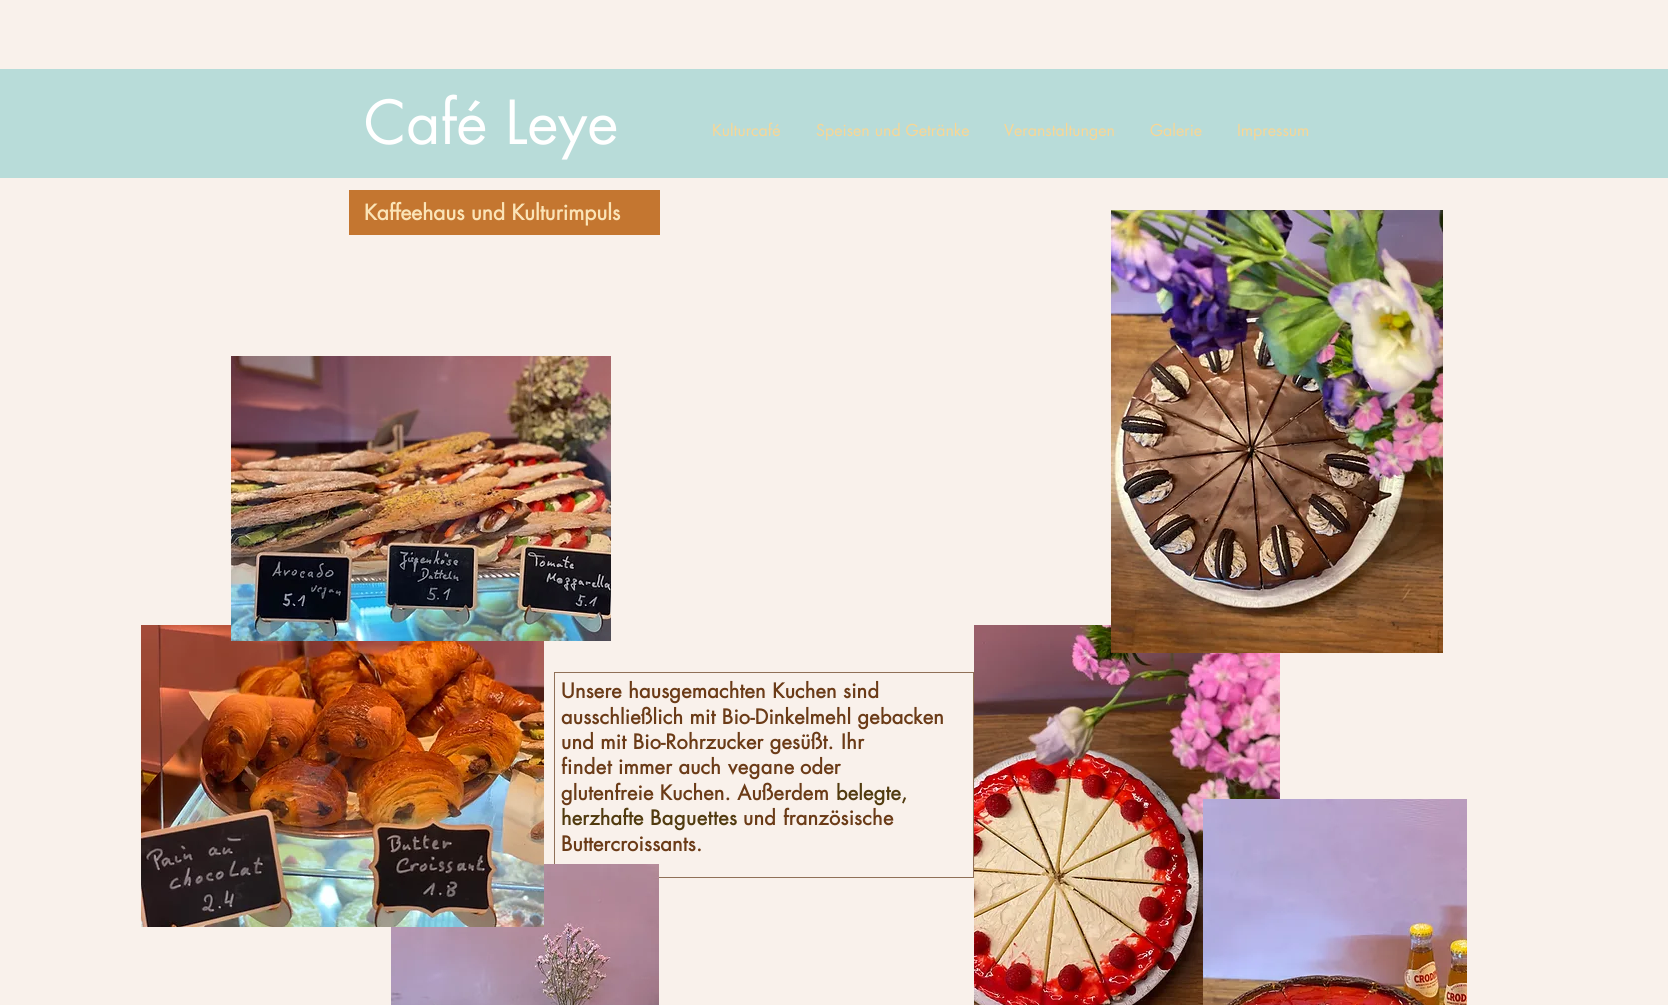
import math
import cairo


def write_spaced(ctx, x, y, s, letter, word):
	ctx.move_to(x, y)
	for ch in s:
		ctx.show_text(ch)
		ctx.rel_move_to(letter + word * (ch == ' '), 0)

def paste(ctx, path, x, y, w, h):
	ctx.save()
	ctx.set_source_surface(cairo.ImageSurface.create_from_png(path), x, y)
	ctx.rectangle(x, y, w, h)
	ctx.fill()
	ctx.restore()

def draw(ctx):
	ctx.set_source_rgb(0.976, 0.945, 0.918)
	ctx.paint()
	ctx.set_source_rgb(0.722, 0.863, 0.851)
	ctx.rectangle(0, 69, 1668, 109)
	ctx.fill()
	ctx.select_font_face('futura')
	ctx.set_font_size(59)
	ctx.set_source_rgb(1, 1, 1)
	ctx.move_to(364, 144)
	ctx.show_text('Café Leye')
	ctx.set_font_size(16)
	ctx.set_source_rgb(0.973, 0.839, 0.576)
	for x, y, s in [
		(712, 136, 'Kulturcafé'),
		(816, 136, 'Speisen und Getränke'),
		(1004, 136, 'Veranstaltungen'),
		(1150, 136, 'Galerie'),
		(1237, 136, 'Impressum'),
	]:
		ctx.move_to(x, y)
		ctx.show_text(s)
	ctx.set_source_rgb(0.769, 0.463, 0.188)
	ctx.rectangle(349, 190, 311, 45)
	ctx.fill()
	ctx.select_font_face('futura', cairo.FONT_SLANT_NORMAL, cairo.FONT_WEIGHT_BOLD)
	ctx.set_font_size(21)
	ctx.set_source_rgb(0.984, 0.894, 0.718)
	ctx.move_to(364, 220)
	ctx.show_text('Kaffeehaus und Kulturimpuls')
	ctx.rectangle(554.5, 672.5, 419, 205)
	ctx.set_source_rgb(0.565, 0.439, 0.341)
	ctx.set_line_width(1)
	ctx.stroke()
	paste(ctx, 'media/5.png', 391, 864, 268, 141)
	paste(ctx, 'media/3.png', 141, 625, 403, 302)
	paste(ctx, 'media/1.png', 231, 356, 380, 285)
	paste(ctx, 'media/4.png', 974, 625, 306, 380)
	paste(ctx, 'media/2.png', 1111, 210, 332, 443)
	ctx.set_font_size(20)
	ctx.set_source_rgb(0.42, 0.231, 0.09)
	for x, y, s in [
		(561, 698, 'Unsere hausgemachten Kuchen'),
		(843, 698, 'sind'),
		(561, 724, 'ausschließlich mit Bio-Dinkelmehl gebacken'),
		(561, 749, 'und mit Bio-Rohrzucker gesüßt.'),
	]:
		write_spaced(ctx, x, y, s, 0.2, 0)
	write_spaced(ctx, 841, 749, 'Ihr', 0.5, 0)
	write_spaced(ctx, 561, 774, 'findet', 0.5, 0)
	write_spaced(ctx, 618, 774, 'immer auch', 0.2, 0)
	write_spaced(ctx, 728, 774, 'vegane', 0.5, 0)
	write_spaced(ctx, 800, 774, 'oder', 0.2, 0)
	write_spaced(ctx, 561, 800, 'glutenfreie Kuchen. Außerdem', 0.2, 0)
	ctx.set_source_rgb(0.318, 0.231, 0.059)
	write_spaced(ctx, 836, 800, 'belegte,', 0.2, 0)
	write_spaced(ctx, 561, 825, 'herzhafte', 0.2, 0)
	write_spaced(ctx, 650, 825, 'Baguettes', 0.5, 0)
	ctx.set_source_rgb(0.42, 0.231, 0.09)
	write_spaced(ctx, 743, 825, 'und', 0.2, 0)
	write_spaced(ctx, 783, 825, 'französische', 0.25, 0)
	write_spaced(ctx, 561, 851, 'Buttercroissants.', 0.2, 0)
	paste(ctx, 'media/6.png', 1203, 799, 264, 206)


surface = cairo.ImageSurface(cairo.FORMAT_RGB24, 1668, 1005)
ctx = cairo.Context(surface)
options = cairo.FontOptions()
options.set_hint_metrics(cairo.HINT_METRICS_OFF)
options.set_hint_style(cairo.HINT_STYLE_NONE)
ctx.set_font_options(options)
ctx.set_miter_limit(4)
draw(ctx)
surface.write_to_png('image.png')
